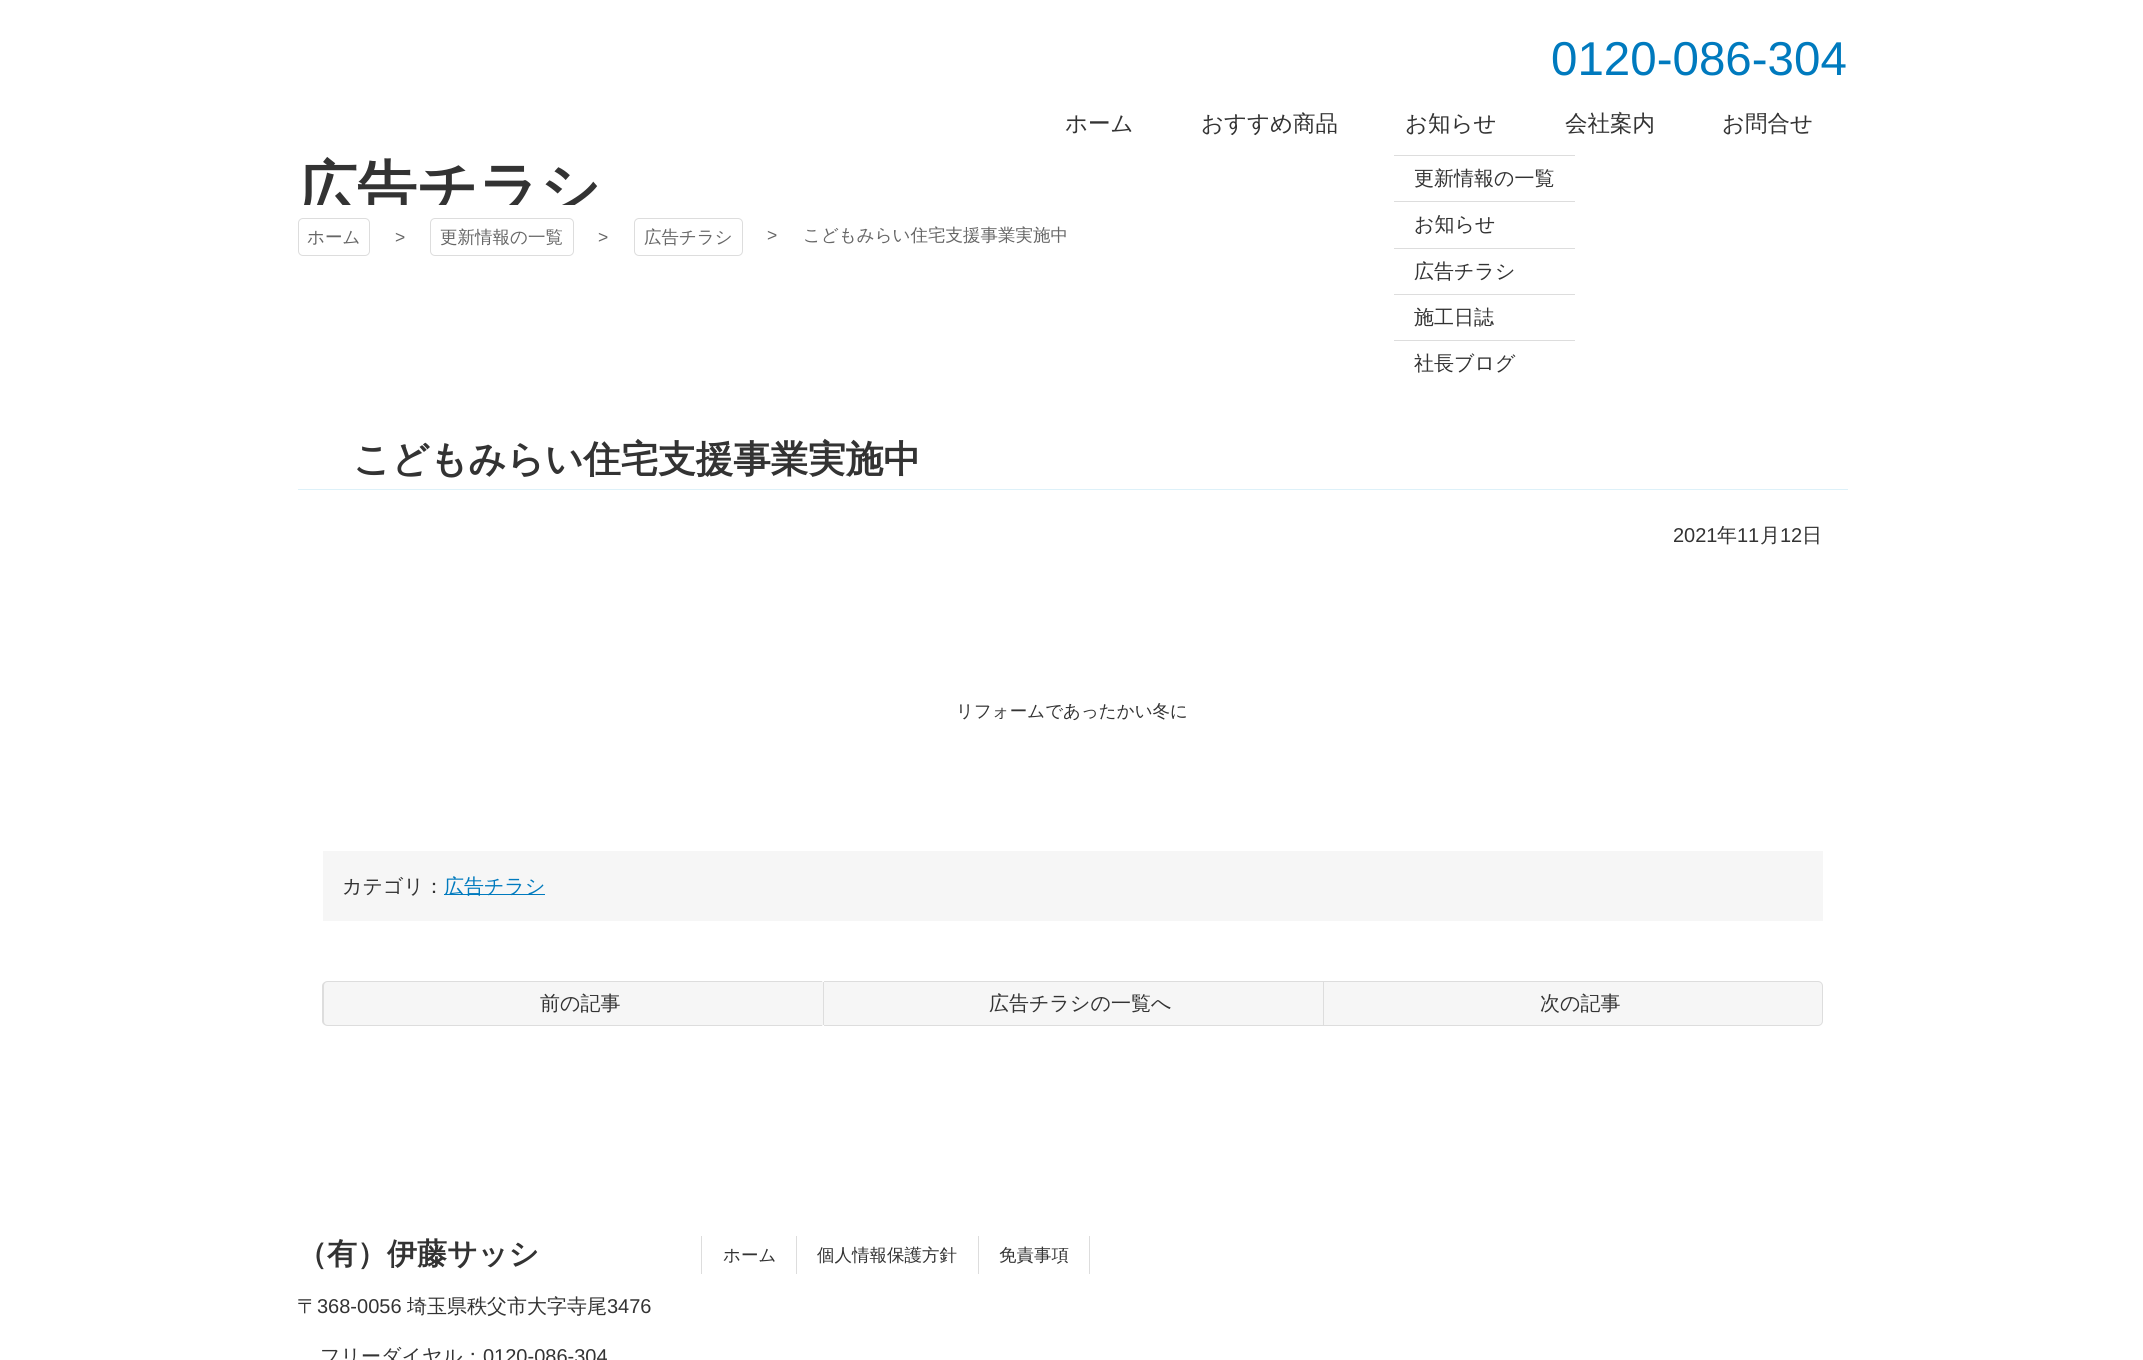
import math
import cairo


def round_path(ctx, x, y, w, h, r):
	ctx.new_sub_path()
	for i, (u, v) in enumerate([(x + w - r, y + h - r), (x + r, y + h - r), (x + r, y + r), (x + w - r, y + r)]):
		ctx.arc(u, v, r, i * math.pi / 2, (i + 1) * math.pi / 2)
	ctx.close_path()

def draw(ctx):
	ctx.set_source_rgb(1, 1, 1)
	ctx.paint()
	ctx.save()
	ctx.rectangle(0, 0, 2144, 205)
	ctx.clip()
	ctx.select_font_face('WenQuanYi Zen Hei', cairo.FONT_SLANT_NORMAL, cairo.FONT_WEIGHT_BOLD)
	ctx.set_font_size(60)
	ctx.set_source_rgb(0.2, 0.2, 0.2)
	ctx.move_to(297, 210)
	ctx.show_text('広告チラシ')
	ctx.restore()
	ctx.select_font_face('Liberation Sans')
	ctx.set_font_size(47.5)
	ctx.set_source_rgb(0, 0.478, 0.745)
	ctx.move_to(1551, 75)
	ctx.show_text('0120-086-304')
	ctx.select_font_face('WenQuanYi Zen Hei Medium')
	ctx.set_font_size(22.5)
	ctx.set_source_rgb(0.2, 0.2, 0.2)
	for x, y, s in [
		(1065, 131, 'ホーム'),
		(1201, 131, 'おすすめ商品'),
		(1405, 131, 'お知らせ'),
	]:
		ctx.move_to(x, y)
		ctx.show_text(s)
	ctx.set_source_rgb(0.867, 0.867, 0.867)
	ctx.rectangle(1394, 155, 181, 1)
	ctx.fill()
	ctx.set_font_size(20)
	ctx.set_source_rgb(0.2, 0.2, 0.2)
	ctx.move_to(1414, 185)
	ctx.show_text('更新情報の一覧')
	ctx.set_source_rgb(0.867, 0.867, 0.867)
	ctx.rectangle(1394, 201, 181, 1)
	ctx.fill()
	ctx.set_source_rgb(0.2, 0.2, 0.2)
	ctx.move_to(1414, 231)
	ctx.show_text('お知らせ')
	ctx.set_source_rgb(0.867, 0.867, 0.867)
	ctx.rectangle(1394, 248, 181, 1)
	ctx.fill()
	ctx.set_source_rgb(0.2, 0.2, 0.2)
	ctx.move_to(1414, 278)
	ctx.show_text('広告チラシ')
	ctx.set_source_rgb(0.867, 0.867, 0.867)
	ctx.rectangle(1394, 294, 181, 1)
	ctx.fill()
	ctx.set_source_rgb(0.2, 0.2, 0.2)
	ctx.move_to(1414, 324)
	ctx.show_text('施工日誌')
	ctx.set_source_rgb(0.867, 0.867, 0.867)
	ctx.rectangle(1394, 340, 181, 1)
	ctx.fill()
	ctx.set_source_rgb(0.2, 0.2, 0.2)
	ctx.move_to(1414, 370)
	ctx.show_text('社長ブログ')
	ctx.set_font_size(22.5)
	ctx.move_to(1565, 131)
	ctx.show_text('会社案内')
	ctx.move_to(1722, 131)
	ctx.show_text('お問合せ')
	round_path(ctx, 298.5, 218.5, 71, 37, 4.5)
	ctx.set_source_rgb(0.867, 0.867, 0.867)
	ctx.set_line_width(1)
	ctx.stroke()
	ctx.set_font_size(17.5)
	ctx.set_source_rgb(0.4, 0.4, 0.4)
	ctx.move_to(307, 243)
	ctx.show_text('ホーム')
	ctx.select_font_face('Liberation Sans')
	ctx.move_to(395, 243)
	ctx.show_text('>')
	round_path(ctx, 430.5, 218.5, 143, 37, 4.5)
	ctx.set_source_rgb(0.867, 0.867, 0.867)
	ctx.stroke()
	ctx.select_font_face('WenQuanYi Zen Hei Medium')
	ctx.set_source_rgb(0.4, 0.4, 0.4)
	ctx.move_to(440, 243)
	ctx.show_text('更新情報の一覧')
	ctx.select_font_face('Liberation Sans')
	ctx.move_to(598, 243)
	ctx.show_text('>')
	round_path(ctx, 634.5, 218.5, 108, 37, 4.5)
	ctx.set_source_rgb(0.867, 0.867, 0.867)
	ctx.stroke()
	ctx.select_font_face('WenQuanYi Zen Hei Medium')
	ctx.set_source_rgb(0.4, 0.4, 0.4)
	ctx.move_to(644, 243)
	ctx.show_text('広告チラシ')
	ctx.select_font_face('Liberation Sans')
	ctx.move_to(767, 241)
	ctx.show_text('>')
	ctx.select_font_face('WenQuanYi Zen Hei Medium')
	ctx.move_to(803, 241)
	ctx.show_text('こどもみらい住宅支援事業実施中')
	ctx.set_source_rgb(0.867, 0.945, 0.976)
	ctx.rectangle(298, 489, 1550, 1)
	ctx.fill()
	ctx.select_font_face('WenQuanYi Zen Hei', cairo.FONT_SLANT_NORMAL, cairo.FONT_WEIGHT_BOLD)
	ctx.set_font_size(37.5)
	ctx.set_source_rgb(0.2, 0.2, 0.2)
	ctx.move_to(353, 472)
	ctx.show_text('こどもみらい住宅支援事業実施中')
	ctx.select_font_face('Liberation Sans')
	ctx.set_font_size(20)
	ctx.move_to(1673, 542)
	ctx.show_text('2021')
	ctx.select_font_face('WenQuanYi Zen Hei Medium')
	ctx.move_to(1717, 542)
	ctx.show_text('年')
	ctx.select_font_face('Liberation Sans')
	ctx.move_to(1737, 542)
	ctx.show_text('11')
	ctx.select_font_face('WenQuanYi Zen Hei Medium')
	ctx.move_to(1760, 542)
	ctx.show_text('月')
	ctx.select_font_face('Liberation Sans')
	ctx.move_to(1780, 542)
	ctx.show_text('12')
	ctx.select_font_face('WenQuanYi Zen Hei Medium')
	ctx.move_to(1802, 542)
	ctx.show_text('日')
	ctx.set_font_size(17.5)
	ctx.move_to(956, 717)
	ctx.show_text('リフォームであったかい冬に')
	ctx.set_source_rgb(0.961, 0.961, 0.961)
	ctx.rectangle(323, 851, 1500, 70)
	ctx.fill()
	ctx.set_font_size(20)
	ctx.set_source_rgb(0.2, 0.2, 0.2)
	ctx.move_to(342, 893)
	ctx.show_text('カテゴリ：')
	ctx.set_source_rgb(0, 0.478, 0.745)
	ctx.rectangle(444, 894, 101, 1)
	ctx.fill()
	ctx.move_to(444, 893)
	ctx.show_text('広告チラシ')
	ctx.set_source_rgb(0.961, 0.961, 0.961)
	ctx.new_path()
	ctx.move_to(328, 981)
	ctx.line_to(823, 981)
	ctx.line_to(823, 1026)
	ctx.line_to(328, 1026)
	ctx.curve_to(325, 1026, 323, 1024, 323, 1021)
	ctx.line_to(323, 986)
	ctx.curve_to(323, 983, 325, 981, 328, 981)
	ctx.close_path()
	ctx.fill()
	ctx.set_source_rgb(0.867, 0.867, 0.867)
	ctx.set_fill_rule(cairo.FILL_RULE_EVEN_ODD)
	ctx.new_path()
	ctx.move_to(328, 981)
	ctx.line_to(822, 981)
	ctx.line_to(822, 1026)
	ctx.line_to(328, 1026)
	ctx.curve_to(325, 1026, 322, 1024, 322, 1021)
	ctx.line_to(322, 986)
	ctx.curve_to(322, 983, 325, 981, 328, 981)
	ctx.close_path()
	ctx.move_to(328, 982)
	ctx.line_to(822, 982)
	ctx.line_to(822, 1025)
	ctx.line_to(328, 1025)
	ctx.curve_to(325, 1025, 324, 1023, 324, 1021)
	ctx.line_to(324, 986)
	ctx.curve_to(324, 984, 325, 982, 328, 982)
	ctx.close_path()
	ctx.fill()
	ctx.set_source_rgb(0.2, 0.2, 0.2)
	ctx.move_to(540, 1010)
	ctx.show_text('前の記事')
	ctx.set_source_rgb(0.961, 0.961, 0.961)
	ctx.rectangle(824, 982, 499, 43)
	ctx.fill()
	ctx.set_source_rgb(0.867, 0.867, 0.867)
	ctx.rectangle(823, 981, 500, 1)
	ctx.rectangle(823, 1025, 500, 1)
	ctx.rectangle(823, 981, 1, 45)
	ctx.fill()
	ctx.set_source_rgb(0.2, 0.2, 0.2)
	ctx.move_to(989, 1010)
	ctx.show_text('広告チラシの一覧へ')
	ctx.set_source_rgb(0.961, 0.961, 0.961)
	ctx.new_path()
	ctx.move_to(1323.5, 981.5)
	ctx.line_to(1818, 981.5)
	ctx.curve_to(1820.5, 981.5, 1822.5, 983.5, 1822.5, 986)
	ctx.line_to(1822.5, 1021)
	ctx.curve_to(1822.5, 1023.5, 1820.5, 1025.5, 1818, 1025.5)
	ctx.line_to(1323.5, 1025.5)
	ctx.close_path()
	ctx.fill_preserve()
	ctx.set_source_rgb(0.867, 0.867, 0.867)
	ctx.stroke()
	ctx.set_source_rgb(0.2, 0.2, 0.2)
	ctx.move_to(1540, 1010)
	ctx.show_text('次の記事')
	ctx.select_font_face('WenQuanYi Zen Hei', cairo.FONT_SLANT_NORMAL, cairo.FONT_WEIGHT_BOLD)
	ctx.set_font_size(30)
	ctx.move_to(297, 1264)
	ctx.show_text('（有）伊藤サッシ')
	ctx.select_font_face('WenQuanYi Zen Hei Medium')
	ctx.set_font_size(20)
	ctx.move_to(297, 1313)
	ctx.show_text('〒')
	ctx.select_font_face('Liberation Sans')
	ctx.move_to(317, 1313)
	ctx.show_text('368-0056')
	ctx.select_font_face('WenQuanYi Zen Hei Medium')
	ctx.move_to(407, 1313)
	ctx.show_text('埼玉県秩父市大字寺尾')
	ctx.select_font_face('Liberation Sans')
	ctx.move_to(607, 1313)
	ctx.show_text('3476')
	ctx.select_font_face('WenQuanYi Zen Hei Medium')
	ctx.move_to(320, 1363)
	ctx.show_text('フリーダイヤル：')
	ctx.select_font_face('Liberation Sans')
	ctx.move_to(483, 1363)
	ctx.show_text('0120-086-304')
	ctx.set_source_rgb(0.867, 0.867, 0.867)
	ctx.rectangle(701, 1236, 1, 38)
	ctx.fill()
	ctx.select_font_face('WenQuanYi Zen Hei Medium')
	ctx.set_font_size(17.5)
	ctx.set_source_rgb(0.2, 0.2, 0.2)
	ctx.move_to(723, 1261)
	ctx.show_text('ホーム')
	ctx.set_source_rgb(0.867, 0.867, 0.867)
	ctx.rectangle(796, 1236, 1, 38)
	ctx.fill()
	ctx.set_source_rgb(0.2, 0.2, 0.2)
	ctx.move_to(817, 1261)
	ctx.show_text('個人情報保護方針')
	ctx.set_source_rgb(0.867, 0.867, 0.867)
	ctx.rectangle(1089, 1236, 1, 38)
	ctx.fill()
	ctx.rectangle(978, 1236, 1, 38)
	ctx.fill()
	ctx.set_source_rgb(0.2, 0.2, 0.2)
	ctx.move_to(999, 1261)
	ctx.show_text('免責事項')


surface = cairo.ImageSurface(cairo.FORMAT_RGB24, 2143, 1360)
ctx = cairo.Context(surface)
options = cairo.FontOptions()
options.set_hint_metrics(cairo.HINT_METRICS_OFF)
options.set_hint_style(cairo.HINT_STYLE_NONE)
ctx.set_font_options(options)
ctx.set_miter_limit(4)
draw(ctx)
surface.write_to_png('image.png')
